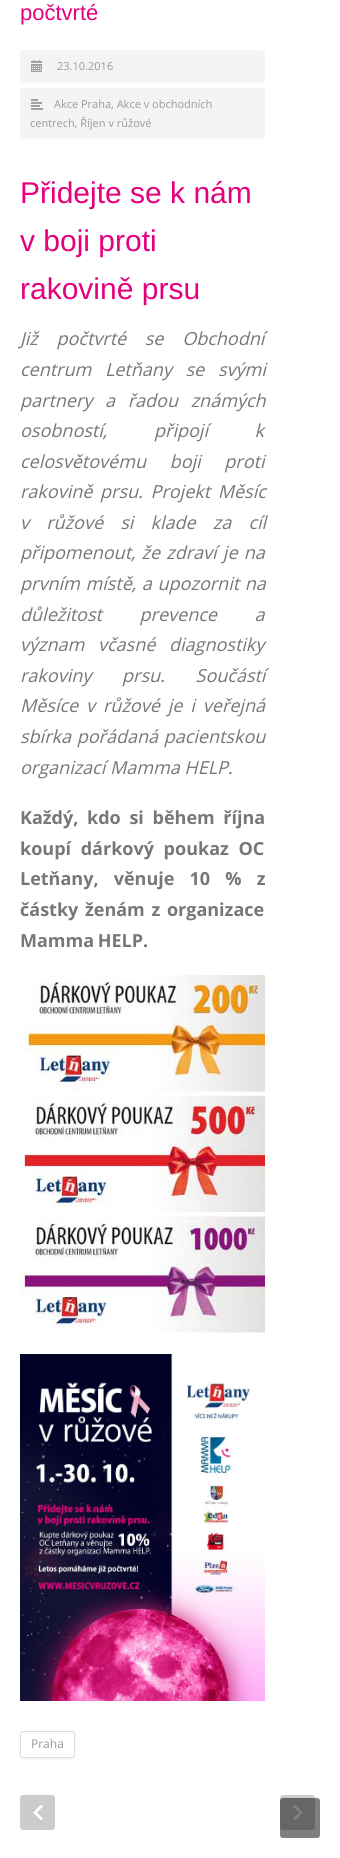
import math
import cairo


def write_spaced(ctx, x, y, s, letter, word):
	ctx.move_to(x, y)
	for ch in s:
		ctx.show_text(ch)
		ctx.rel_move_to(letter + word * (ch == ' '), 0)

def round_path(ctx, x, y, w, h, r):
	ctx.new_sub_path()
	for i, (u, v) in enumerate([(x + w - r, y + h - r), (x + r, y + h - r), (x + r, y + r), (x + w - r, y + r)]):
		ctx.arc(u, v, r, i * math.pi / 2, (i + 1) * math.pi / 2)
	ctx.close_path()

def blur_box(ctx, x, y, w, h, r, blur, alpha):
	ctx.push_group_with_content(cairo.CONTENT_ALPHA)
	ctx.set_operator(cairo.OPERATOR_SOURCE)
	for i in range(15, -16, -2):
		e = blur * i / 6
		if min(w, h) + 2 * e > 0:
			ctx.set_source_rgba(0, 0, 0, alpha * math.erfc((i - 1) / 8.5) / 2)
			round_path(ctx, x - e, y - e, w + 2 * e, h + 2 * e, max(0, min(r + e + blur * .6, min(w, h) / 2 + e)))
			ctx.fill()
	ctx.mask(ctx.pop_group())

def paste(ctx, path, x, y, w, h):
	ctx.save()
	ctx.set_source_surface(cairo.ImageSurface.create_from_png(path), x, y)
	ctx.rectangle(x, y, w, h)
	ctx.fill()
	ctx.restore()

def draw(ctx):
	ctx.set_source_rgb(1, 1, 1)
	ctx.paint()
	ctx.select_font_face('Liberation Sans')
	ctx.set_font_size(22)
	ctx.set_source_rgb(0.898, 0, 0.49)
	ctx.move_to(20, 20)
	ctx.show_text('počtvrté')
	ctx.set_source_rgb(0.957, 0.957, 0.957)
	round_path(ctx, 20, 50, 245, 33, 3)
	ctx.fill()
	paste(ctx, 'media/1.png', 31, 60, 11, 12)
	ctx.select_font_face('Open Sans')
	ctx.set_font_size(11)
	ctx.set_source_rgb(0.6, 0.6, 0.6)
	ctx.move_to(57, 70)
	ctx.show_text('23.10.2016')
	ctx.set_source_rgb(0.957, 0.957, 0.957)
	round_path(ctx, 20, 88, 245, 51, 3)
	ctx.fill()
	paste(ctx, 'media/2.png', 31, 99, 12, 11)
	ctx.set_source_rgb(0.6, 0.6, 0.6)
	ctx.move_to(54, 108)
	ctx.show_text('Akce Praha, Akce v obchodních')
	ctx.move_to(30, 127)
	ctx.show_text('centrech, Říjen v růžové')
	ctx.select_font_face('Liberation Sans')
	ctx.set_font_size(30)
	ctx.set_source_rgb(0.898, 0, 0.49)
	for x, y, s in [
		(20, 203, 'Přidejte se k nám'),
		(20, 251, 'v boji proti'),
		(20, 299, 'rakovině prsu'),
	]:
		ctx.move_to(x, y)
		ctx.show_text(s)
	ctx.select_font_face('Open Sans', cairo.FONT_SLANT_ITALIC)
	ctx.set_font_size(18)
	ctx.set_source_rgb(0.467, 0.467, 0.467)
	write_spaced(ctx, 20, 345, 'Již počtvrté se Obchodní', 0, 14)
	write_spaced(ctx, 20, 376, 'centrum Letňany se svými', 0, 9)
	write_spaced(ctx, 20, 407, 'partnery a řadou známých', 0, 8)
	ctx.move_to(20, 437)
	ctx.show_text('osobností,')
	write_spaced(ctx, 154, 437, 'připojí k', 0, 42)
	write_spaced(ctx, 20, 468, 'celosvětovému boji proti', 0, 19)
	write_spaced(ctx, 20, 498, 'rakovině prsu. Projekt Měsíc', 0, 3)
	write_spaced(ctx, 20, 529, 'v růžové si klade za cíl', 0, 12.5)
	write_spaced(ctx, 20, 559, 'připomenout, že zdraví je na', 0, 1.5)
	write_spaced(ctx, 20, 590, 'prvním místě, a upozornit na', 0, 1)
	write_spaced(ctx, 20, 621, 'důležitost prevence a', 0, 33)
	write_spaced(ctx, 20, 651, 'význam včasné diagnostiky', 0, 9)
	write_spaced(ctx, 20, 682, 'rakoviny prsu. Součástí', 0, 26)
	write_spaced(ctx, 20, 712, 'Měsíce v růžové je i veřejná', 0, 3.25)
	write_spaced(ctx, 20, 743, 'sbírka pořádaná pacientskou', 0, 1)
	ctx.move_to(20, 774)
	ctx.show_text('organizací Mamma HELP.')
	ctx.select_font_face('Open Sans', cairo.FONT_SLANT_NORMAL, cairo.FONT_WEIGHT_BOLD)
	write_spaced(ctx, 20, 824, 'Každý, kdo si během října', 0, 4)
	write_spaced(ctx, 20, 855, 'koupí dárkový poukaz OC', 0, 5)
	write_spaced(ctx, 20, 885, 'Letňany, věnuje 10 % z', 0, 10.5)
	ctx.move_to(20, 916)
	ctx.show_text('částky')
	write_spaced(ctx, 85, 916, 'ženám z organizace', 0, 2)
	write_spaced(ctx, 20, 947, 'Mamma HELP.', 0, -1)
	paste(ctx, 'media/3.png', 20, 975, 245, 358)
	paste(ctx, 'media/4.png', 20, 1354, 245, 347)
	ctx.save()
	ctx.set_fill_rule(cairo.FILL_RULE_EVEN_ODD)
	ctx.new_path()
	ctx.move_to(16, 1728)
	ctx.line_to(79, 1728)
	ctx.line_to(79, 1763)
	ctx.line_to(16, 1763)
	ctx.close_path()
	ctx.move_to(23, 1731)
	ctx.line_to(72, 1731)
	ctx.curve_to(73.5, 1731, 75, 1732.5, 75, 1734)
	ctx.line_to(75, 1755)
	ctx.curve_to(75, 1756.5, 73.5, 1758, 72, 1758)
	ctx.line_to(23, 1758)
	ctx.curve_to(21.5, 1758, 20, 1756.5, 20, 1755)
	ctx.line_to(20, 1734)
	ctx.curve_to(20, 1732.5, 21.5, 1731, 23, 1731)
	ctx.close_path()
	ctx.clip()
	ctx.set_source_rgb(0.706, 0.706, 0.706)
	blur_box(ctx, 20, 1732, 55, 27, 3, 1, 0.2)
	ctx.restore()
	round_path(ctx, 20.5, 1731.5, 54, 26, 2.5)
	ctx.set_source_rgb(0.867, 0.867, 0.867)
	ctx.set_line_width(1)
	ctx.stroke()
	ctx.select_font_face('Open Sans')
	ctx.set_font_size(12)
	ctx.set_source_rgb(0.6, 0.6, 0.6)
	ctx.move_to(31, 1748)
	ctx.show_text('Praha')
	ctx.set_source_rgb(0.8, 0.8, 0.8)
	round_path(ctx, 20, 1795, 35, 35, 3)
	ctx.fill()
	paste(ctx, 'media/5.png', 33, 1805, 10, 15)
	round_path(ctx, 280, 1795, 35, 35, 3)
	ctx.fill()
	paste(ctx, 'media/6.png', 293, 1805, 10, 15)
	ctx.set_source_rgba(0, 0, 0, 0.5)
	round_path(ctx, 280, 1798, 40, 40, 3)
	ctx.fill()


surface = cairo.ImageSurface(cairo.FORMAT_RGB24, 340, 1858)
ctx = cairo.Context(surface)
options = cairo.FontOptions()
options.set_hint_metrics(cairo.HINT_METRICS_OFF)
options.set_hint_style(cairo.HINT_STYLE_NONE)
ctx.set_font_options(options)
ctx.set_miter_limit(4)
draw(ctx)
surface.write_to_png('image.png')
